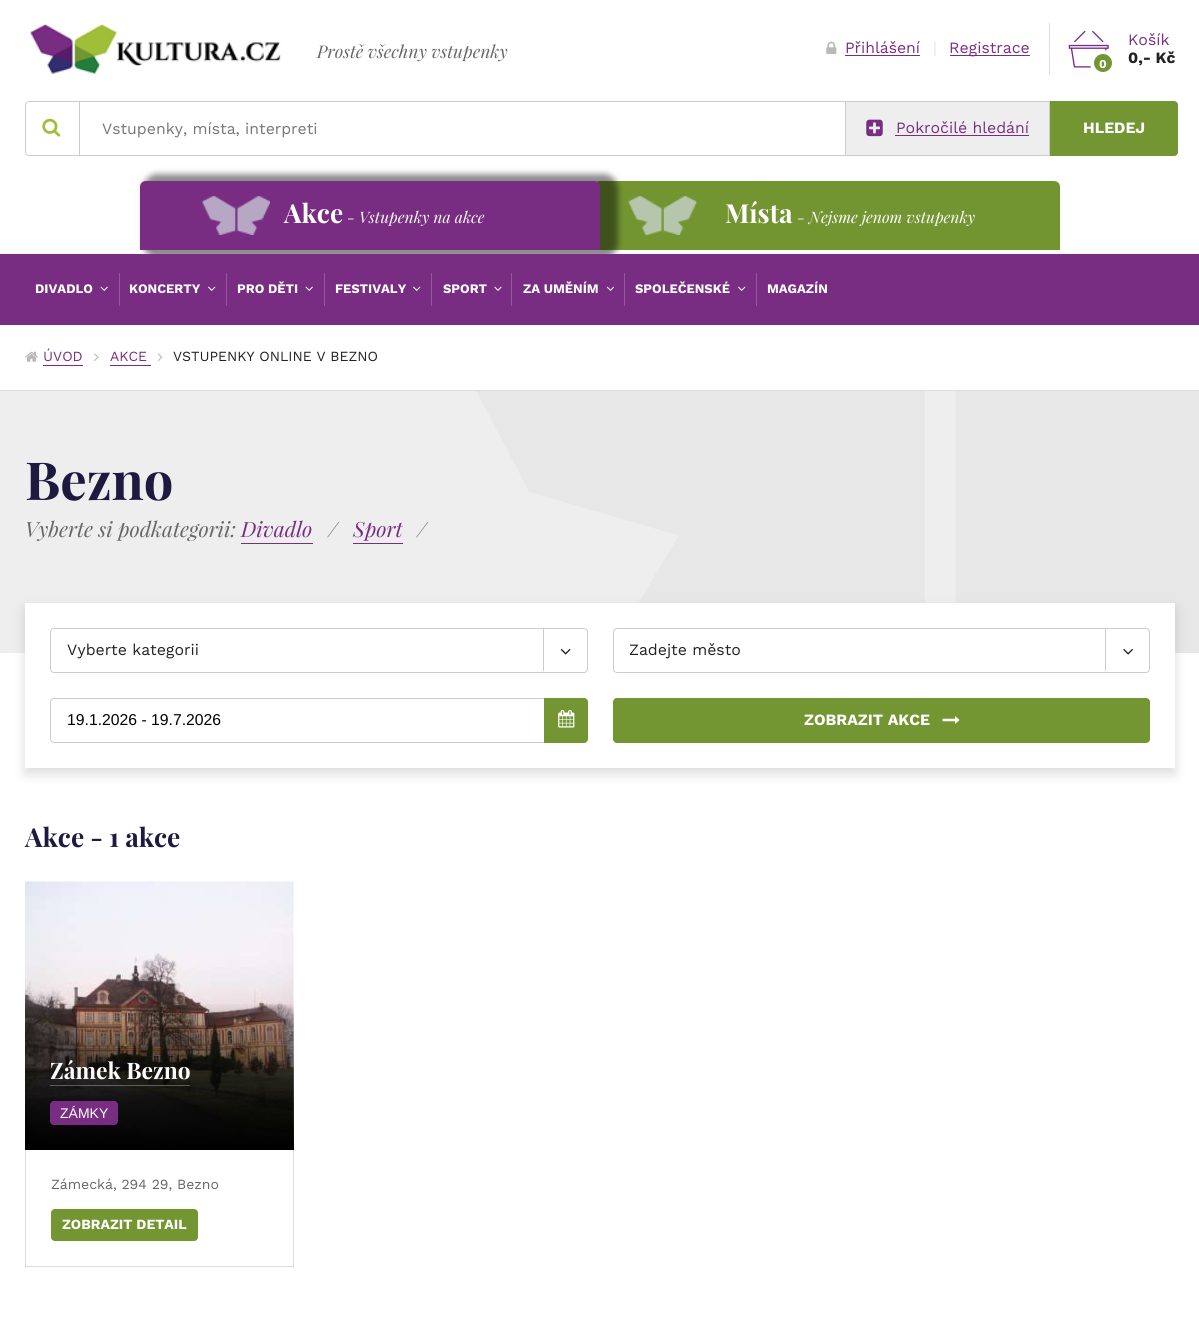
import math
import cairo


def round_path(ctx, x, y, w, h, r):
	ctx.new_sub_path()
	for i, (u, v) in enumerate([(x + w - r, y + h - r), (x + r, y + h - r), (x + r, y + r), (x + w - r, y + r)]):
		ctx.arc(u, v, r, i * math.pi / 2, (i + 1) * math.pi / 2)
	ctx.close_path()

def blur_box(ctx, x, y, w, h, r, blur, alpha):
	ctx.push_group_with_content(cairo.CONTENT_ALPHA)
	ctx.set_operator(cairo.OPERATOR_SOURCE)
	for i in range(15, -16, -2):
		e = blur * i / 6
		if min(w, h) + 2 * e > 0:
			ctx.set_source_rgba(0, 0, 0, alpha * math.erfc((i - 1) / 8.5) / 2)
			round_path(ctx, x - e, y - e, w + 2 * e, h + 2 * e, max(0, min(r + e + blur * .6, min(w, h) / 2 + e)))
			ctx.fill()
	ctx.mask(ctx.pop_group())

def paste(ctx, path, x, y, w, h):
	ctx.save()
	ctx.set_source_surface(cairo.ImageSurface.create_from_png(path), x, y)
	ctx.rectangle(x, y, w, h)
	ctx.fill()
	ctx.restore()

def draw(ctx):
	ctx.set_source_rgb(1, 1, 1)
	ctx.paint()
	paste(ctx, 'media/1.png', 30, 23, 252, 51)
	ctx.select_font_face('Playfair Display', cairo.FONT_SLANT_ITALIC)
	ctx.set_font_size(17.5)
	ctx.set_source_rgb(0.4, 0.4, 0.4)
	ctx.move_to(317, 58)
	ctx.show_text('Prostě všechny vstupenky')
	paste(ctx, 'media/2.png', 826, 41, 11, 13)
	ctx.select_font_face('Work Sans')
	ctx.set_font_size(15.75)
	ctx.set_source_rgb(0.471, 0.176, 0.51)
	ctx.move_to(845, 53)
	ctx.show_text('Přihlášení')
	ctx.rectangle(845, 55, 75, 1)
	ctx.fill()
	ctx.set_source_rgb(0.894, 0.894, 0.894)
	ctx.move_to(933, 53)
	ctx.show_text('|')
	ctx.set_source_rgb(0.471, 0.176, 0.51)
	ctx.rectangle(950, 55, 80, 1)
	ctx.fill()
	ctx.move_to(949, 53)
	ctx.show_text('Registrace')
	ctx.set_source_rgb(0.867, 0.867, 0.867)
	ctx.rectangle(1049, 23, 1, 52)
	ctx.fill()
	paste(ctx, 'media/3.png', 1068, 30, 41, 38)
	ctx.set_source_rgb(0.451, 0.588, 0.196)
	ctx.arc(1103, 63, 11, 0, 2 * math.pi)
	ctx.fill_preserve()
	ctx.set_source_rgb(1, 1, 1)
	ctx.set_line_width(4)
	ctx.stroke()
	ctx.select_font_face('Work Sans', cairo.FONT_SLANT_NORMAL, cairo.FONT_WEIGHT_BOLD)
	ctx.set_font_size(12)
	ctx.move_to(1099, 68)
	ctx.show_text('0')
	ctx.select_font_face('Work Sans')
	ctx.set_font_size(15.75)
	ctx.set_source_rgb(0.471, 0.176, 0.51)
	ctx.move_to(1128, 45)
	ctx.show_text('Košík')
	ctx.select_font_face('Work Sans', cairo.FONT_SLANT_NORMAL, cairo.FONT_WEIGHT_BOLD)
	ctx.set_source_rgb(0.133, 0.133, 0.133)
	ctx.move_to(1128, 63)
	ctx.show_text('0,- Kč')
	ctx.new_path()
	ctx.move_to(29, 101.5)
	ctx.line_to(845.5, 101.5)
	ctx.line_to(845.5, 155.5)
	ctx.line_to(29, 155.5)
	ctx.curve_to(27, 155.5, 25.5, 154, 25.5, 152)
	ctx.line_to(25.5, 105)
	ctx.curve_to(25.5, 103, 27, 101.5, 29, 101.5)
	ctx.close_path()
	ctx.set_source_rgb(0.8, 0.8, 0.8)
	ctx.set_line_width(1)
	ctx.stroke()
	ctx.rectangle(79, 101, 1, 55)
	ctx.fill()
	paste(ctx, 'media/4.png', 42, 118, 19, 19)
	ctx.select_font_face('Work Sans')
	ctx.set_source_rgb(0.459, 0.459, 0.459)
	ctx.move_to(102, 134)
	ctx.show_text('Vstupenky, místa, interpreti')
	ctx.set_source_rgb(0.933, 0.933, 0.933)
	ctx.rectangle(846, 102, 203, 53)
	ctx.fill()
	ctx.set_source_rgb(0.8, 0.8, 0.8)
	ctx.rectangle(846, 101, 204, 1)
	ctx.rectangle(1049, 101, 1, 55)
	ctx.rectangle(846, 155, 204, 1)
	ctx.fill()
	paste(ctx, 'media/5.png', 866, 119, 17, 18)
	ctx.set_source_rgb(0.471, 0.176, 0.51)
	ctx.move_to(896, 133)
	ctx.show_text('Pokročilé hledání')
	ctx.rectangle(895, 135, 134, 1)
	ctx.fill()
	ctx.set_source_rgb(0.451, 0.588, 0.196)
	ctx.new_path()
	ctx.move_to(1050.5, 101.5)
	ctx.line_to(1174, 101.5)
	ctx.curve_to(1176, 101.5, 1177.5, 103, 1177.5, 105)
	ctx.line_to(1177.5, 152)
	ctx.curve_to(1177.5, 154, 1176, 155.5, 1174, 155.5)
	ctx.line_to(1050.5, 155.5)
	ctx.close_path()
	ctx.fill_preserve()
	ctx.stroke()
	ctx.select_font_face('Work Sans', cairo.FONT_SLANT_NORMAL, cairo.FONT_WEIGHT_BOLD)
	ctx.set_source_rgb(1, 1, 1)
	ctx.move_to(1083, 133)
	ctx.show_text('HLEDEJ')
	ctx.set_source_rgb(0.451, 0.584, 0.192)
	ctx.new_path()
	ctx.move_to(600, 181)
	ctx.line_to(1054, 181)
	ctx.curve_to(1057.5, 181, 1060, 183.5, 1060, 187)
	ctx.line_to(1060, 250)
	ctx.line_to(594, 250)
	ctx.line_to(594, 187)
	ctx.curve_to(594, 183.5, 596.5, 181, 600, 181)
	ctx.close_path()
	ctx.fill()
	ctx.set_source_rgb(0, 0, 0)
	blur_box(ctx, 143, 174, 475, 84, 14, 3, 0.45)
	ctx.set_source_rgb(0.471, 0.176, 0.51)
	ctx.new_path()
	ctx.move_to(146, 181)
	ctx.line_to(594, 181)
	ctx.curve_to(597.5, 181, 600, 183.5, 600, 187)
	ctx.line_to(600, 250)
	ctx.line_to(140, 250)
	ctx.line_to(140, 187)
	ctx.curve_to(140, 183.5, 142.5, 181, 146, 181)
	ctx.close_path()
	ctx.fill()
	paste(ctx, 'media/6.png', 202, 196, 68, 39)
	ctx.select_font_face('Playfair Display', cairo.FONT_SLANT_NORMAL, cairo.FONT_WEIGHT_BOLD)
	ctx.set_font_size(26.25)
	ctx.set_source_rgb(1, 1, 1)
	ctx.move_to(284, 223)
	ctx.show_text('Akce')
	ctx.select_font_face('Playfair Display', cairo.FONT_SLANT_ITALIC)
	ctx.set_font_size(15.75)
	ctx.move_to(347, 223)
	ctx.show_text('- Vstupenky na akce')
	paste(ctx, 'media/7.png', 628, 196, 69, 39)
	ctx.select_font_face('Playfair Display', cairo.FONT_SLANT_NORMAL, cairo.FONT_WEIGHT_BOLD)
	ctx.set_font_size(26.25)
	ctx.move_to(725, 223)
	ctx.show_text('Místa')
	ctx.select_font_face('Playfair Display', cairo.FONT_SLANT_ITALIC)
	ctx.set_font_size(15.75)
	ctx.move_to(797, 223)
	ctx.show_text('- Nejsme jenom vstupenky')
	ctx.set_source_rgb(0.471, 0.176, 0.51)
	ctx.rectangle(0, 254, 1199, 71)
	ctx.fill()
	ctx.select_font_face('Work Sans', cairo.FONT_SLANT_NORMAL, cairo.FONT_WEIGHT_BOLD)
	ctx.set_font_size(13)
	ctx.set_source_rgb(1, 1, 1)
	ctx.move_to(35, 293)
	ctx.show_text('DIVADLO')
	paste(ctx, 'media/8.png', 100, 286, 8, 5)
	ctx.set_source_rgb(0.576, 0.341, 0.608)
	ctx.rectangle(119, 273, 1, 33)
	ctx.fill()
	ctx.set_source_rgb(1, 1, 1)
	ctx.move_to(129, 293)
	ctx.show_text('KONCERTY')
	paste(ctx, 'media/9.png', 208, 286, 8, 5)
	ctx.set_source_rgb(0.576, 0.341, 0.608)
	ctx.rectangle(226, 273, 1, 33)
	ctx.fill()
	ctx.set_source_rgb(1, 1, 1)
	ctx.move_to(237, 293)
	ctx.show_text('PRO DĚTI')
	paste(ctx, 'media/8.png', 305, 286, 8, 5)
	ctx.set_source_rgb(0.576, 0.341, 0.608)
	ctx.rectangle(324, 273, 1, 33)
	ctx.fill()
	ctx.set_source_rgb(1, 1, 1)
	ctx.move_to(335, 293)
	ctx.show_text('FESTIVALY')
	paste(ctx, 'media/9.png', 413, 286, 8, 5)
	ctx.set_source_rgb(0.576, 0.341, 0.608)
	ctx.rectangle(431, 273, 1, 33)
	ctx.fill()
	ctx.set_source_rgb(1, 1, 1)
	ctx.move_to(443, 293)
	ctx.show_text('SPORT')
	paste(ctx, 'media/10.png', 494, 286, 8, 5)
	ctx.set_source_rgb(0.576, 0.341, 0.608)
	ctx.rectangle(511, 273, 1, 33)
	ctx.fill()
	ctx.set_source_rgb(1, 1, 1)
	ctx.move_to(523, 293)
	ctx.show_text('ZA UMĚNÍM')
	paste(ctx, 'media/11.png', 606, 286, 9, 5)
	ctx.set_source_rgb(0.576, 0.341, 0.608)
	ctx.rectangle(624, 273, 1, 33)
	ctx.fill()
	ctx.set_source_rgb(1, 1, 1)
	ctx.move_to(635, 293)
	ctx.show_text('SPOLEČENSKÉ')
	paste(ctx, 'media/9.png', 738, 286, 8, 5)
	ctx.set_source_rgb(0.576, 0.341, 0.608)
	ctx.rectangle(756, 273, 1, 33)
	ctx.fill()
	ctx.set_source_rgb(1, 1, 1)
	ctx.move_to(767, 293)
	ctx.show_text('MAGAZÍN')
	ctx.set_source_rgb(0.867, 0.867, 0.867)
	ctx.rectangle(0, 390, 1199, 1)
	ctx.fill()
	paste(ctx, 'media/12.png', 25, 351, 13, 11)
	ctx.select_font_face('Work Sans')
	ctx.set_font_size(14)
	ctx.set_source_rgb(0.471, 0.176, 0.51)
	ctx.move_to(43, 361)
	ctx.show_text('ÚVOD')
	ctx.rectangle(43, 365, 40, 1)
	ctx.fill()
	paste(ctx, 'media/13.png', 94, 353, 5, 8)
	ctx.move_to(110, 361)
	ctx.show_text('AKCE')
	ctx.rectangle(110, 365, 41, 1)
	ctx.fill()
	paste(ctx, 'media/14.png', 157, 353, 6, 8)
	ctx.set_source_rgb(0.133, 0.133, 0.133)
	ctx.move_to(173, 361)
	ctx.show_text('VSTUPENKY ONLINE V BEZNO')
	ctx.set_source_rgb(0.933, 0.933, 0.933)
	ctx.rectangle(0, 391, 956, 262)
	ctx.fill()
	ctx.select_font_face('Playfair Display', cairo.FONT_SLANT_NORMAL, cairo.FONT_WEIGHT_BOLD)
	ctx.set_font_size(52.5)
	ctx.set_source_rgb(0.114, 0.098, 0.247)
	ctx.move_to(25, 500)
	ctx.show_text('Bezno')
	ctx.select_font_face('Playfair Display', cairo.FONT_SLANT_ITALIC)
	ctx.set_font_size(21)
	ctx.set_source_rgb(0.4, 0.4, 0.4)
	ctx.move_to(25, 537)
	ctx.show_text('Vyberte si podkategorii:')
	ctx.set_source_rgb(0.471, 0.176, 0.51)
	ctx.move_to(241, 537)
	ctx.show_text('Divadlo')
	ctx.rectangle(241, 543, 72, 1)
	ctx.fill()
	ctx.set_source_rgb(0.4, 0.4, 0.4)
	ctx.move_to(328, 537)
	ctx.show_text('/')
	ctx.set_source_rgb(0.471, 0.176, 0.51)
	ctx.move_to(353, 537)
	ctx.show_text('Sport')
	ctx.rectangle(353, 543, 50, 1)
	ctx.fill()
	ctx.set_source_rgb(0.4, 0.4, 0.4)
	ctx.move_to(417, 537)
	ctx.show_text('/')
	paste(ctx, 'media/15.png', 477, 391, 722, 262)
	ctx.set_source_rgb(0, 0, 0)
	blur_box(ctx, 25, 609, 1150, 165, 0, 6, 0.14)
	ctx.set_source_rgb(1, 1, 1)
	ctx.rectangle(25, 603, 1150, 165)
	ctx.fill()
	round_path(ctx, 50.5, 628.5, 537, 44, 3.5)
	ctx.set_source_rgb(0.8, 0.8, 0.8)
	ctx.stroke()
	ctx.select_font_face('Work Sans')
	ctx.set_font_size(15.75)
	ctx.set_source_rgb(0.133, 0.133, 0.133)
	ctx.move_to(67, 655)
	ctx.show_text('Vyberte kategorii')
	ctx.set_source_rgb(0.8, 0.8, 0.8)
	ctx.rectangle(543, 629, 1, 42)
	ctx.fill()
	paste(ctx, 'media/16.png', 560, 648, 11, 7)
	round_path(ctx, 613.5, 628.5, 536, 44, 3.5)
	ctx.stroke()
	ctx.set_source_rgb(0.133, 0.133, 0.133)
	ctx.move_to(629, 655)
	ctx.show_text('Zadejte město')
	ctx.set_source_rgb(0.8, 0.8, 0.8)
	ctx.rectangle(1105, 629, 1, 42)
	ctx.fill()
	paste(ctx, 'media/17.png', 1123, 648, 10, 7)
	round_path(ctx, 50.5, 698.5, 537, 44, 3.5)
	ctx.stroke()
	ctx.select_font_face('Liberation Sans')
	ctx.set_source_rgb(0, 0, 0)
	ctx.move_to(67, 725)
	ctx.show_text('19.1.2026 - 19.7.2026')
	ctx.set_source_rgb(0.451, 0.588, 0.196)
	ctx.new_path()
	ctx.move_to(544, 698)
	ctx.line_to(584, 698)
	ctx.curve_to(586, 698, 588, 700, 588, 702)
	ctx.line_to(588, 739)
	ctx.curve_to(588, 741, 586, 743, 584, 743)
	ctx.line_to(544, 743)
	ctx.close_path()
	ctx.fill()
	paste(ctx, 'media/18.png', 558, 710, 17, 18)
	round_path(ctx, 613.5, 698.5, 536, 44, 3.5)
	ctx.fill_preserve()
	ctx.stroke()
	ctx.select_font_face('Work Sans', cairo.FONT_SLANT_NORMAL, cairo.FONT_WEIGHT_BOLD)
	ctx.set_source_rgb(1, 1, 1)
	ctx.move_to(804, 725)
	ctx.show_text('ZOBRAZIT AKCE')
	paste(ctx, 'media/19.png', 942, 716, 18, 8)
	ctx.select_font_face('Playfair Display', cairo.FONT_SLANT_NORMAL, cairo.FONT_WEIGHT_BOLD)
	ctx.set_font_size(26.25)
	ctx.set_source_rgb(0.114, 0.098, 0.247)
	ctx.move_to(25, 847)
	ctx.show_text('Akce - 1 akce')
	paste(ctx, 'media/20.png', 25, 881, 269, 268)
	gradient = cairo.LinearGradient(159, 1001, 159, 1150)
	gradient.add_color_stop_rgba(0, 0, 0, 0, 0)
	gradient.add_color_stop_rgba(1, 0, 0, 0, 1)
	ctx.set_source(gradient)
	ctx.rectangle(25, 1004, 269, 146)
	ctx.fill()
	ctx.set_font_size(22.75)
	ctx.set_source_rgb(1, 1, 1)
	ctx.move_to(50, 1079)
	ctx.show_text('Zámek Bezno')
	ctx.set_source_rgba(1, 1, 1, 0.3)
	ctx.rectangle(50, 1085, 140, 1)
	ctx.fill()
	ctx.set_source_rgb(0.471, 0.176, 0.51)
	round_path(ctx, 50, 1101, 68, 24, 4)
	ctx.fill()
	ctx.select_font_face('Liberation Sans')
	ctx.set_font_size(14)
	ctx.set_source_rgb(1, 1, 1)
	ctx.move_to(60, 1118)
	ctx.show_text('ZÁMKY')
	ctx.set_source_rgb(0.867, 0.867, 0.867)
	ctx.rectangle(293, 1150, 1, 118)
	ctx.rectangle(25, 1266, 269, 1)
	ctx.rectangle(25, 1150, 1, 118)
	ctx.fill()
	ctx.select_font_face('Work Sans')
	ctx.set_source_rgb(0.4, 0.4, 0.4)
	ctx.move_to(51, 1189)
	ctx.show_text('Zámecká, 294 29, Bezno')
	ctx.set_source_rgb(0.451, 0.588, 0.196)
	round_path(ctx, 51.5, 1209.5, 146, 31, 3.5)
	ctx.fill_preserve()
	ctx.stroke()
	ctx.select_font_face('Work Sans', cairo.FONT_SLANT_NORMAL, cairo.FONT_WEIGHT_BOLD)
	ctx.set_source_rgb(1, 1, 1)
	ctx.move_to(62, 1229)
	ctx.show_text('ZOBRAZIT DETAIL')


surface = cairo.ImageSurface(cairo.FORMAT_RGB24, 1199, 1331)
ctx = cairo.Context(surface)
options = cairo.FontOptions()
options.set_hint_metrics(cairo.HINT_METRICS_OFF)
options.set_hint_style(cairo.HINT_STYLE_NONE)
ctx.set_font_options(options)
ctx.set_miter_limit(4)
draw(ctx)
surface.write_to_png('image.png')
